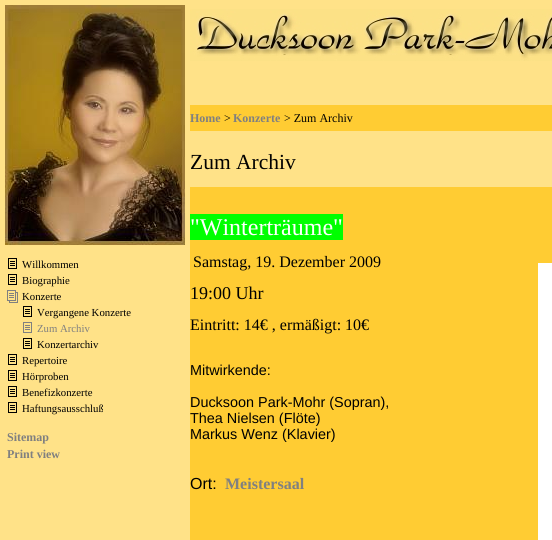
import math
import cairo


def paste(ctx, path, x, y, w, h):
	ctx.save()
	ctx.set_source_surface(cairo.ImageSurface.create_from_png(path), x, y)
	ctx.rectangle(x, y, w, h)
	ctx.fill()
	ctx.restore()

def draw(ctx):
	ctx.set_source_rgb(1, 0.886, 0.533)
	ctx.paint()
	paste(ctx, 'media/1.png', 190, 9, 362, 52)
	ctx.set_source_rgb(1, 0.8, 0.2)
	ctx.rectangle(190, 105, 362, 26)
	ctx.fill()
	ctx.select_font_face('Liberation Serif', cairo.FONT_SLANT_NORMAL, cairo.FONT_WEIGHT_BOLD)
	ctx.set_font_size(12)
	ctx.set_source_rgb(0.502, 0.502, 0.502)
	ctx.move_to(190, 122)
	ctx.show_text('Home')
	ctx.select_font_face('Liberation Serif')
	ctx.set_source_rgb(0, 0, 0)
	ctx.move_to(224, 122)
	ctx.show_text('>')
	ctx.select_font_face('Liberation Serif', cairo.FONT_SLANT_NORMAL, cairo.FONT_WEIGHT_BOLD)
	ctx.set_source_rgb(0.502, 0.502, 0.502)
	ctx.move_to(233, 122)
	ctx.show_text('Konzerte')
	ctx.select_font_face('Liberation Serif')
	ctx.set_source_rgb(0, 0, 0)
	ctx.move_to(284, 122)
	ctx.show_text('> Zum Archiv')
	paste(ctx, 'media/2.png', 5, 5, 180, 240)
	paste(ctx, 'media/3.png', 8, 258, 9, 11)
	ctx.set_font_size(10.75)
	ctx.move_to(22, 268)
	ctx.show_text('Willkommen')
	paste(ctx, 'media/3.png', 8, 274, 9, 11)
	ctx.move_to(22, 284)
	ctx.show_text('Biographie')
	paste(ctx, 'media/4.png', 7, 290, 11, 13)
	ctx.move_to(22, 300)
	ctx.show_text('Konzerte')
	paste(ctx, 'media/3.png', 23, 306, 9, 11)
	ctx.move_to(37, 316)
	ctx.show_text('Vergangene Konzerte')
	paste(ctx, 'media/5.png', 23, 322, 9, 11)
	ctx.set_source_rgb(0.502, 0.502, 0.502)
	ctx.move_to(37, 332)
	ctx.show_text('Zum Archiv')
	paste(ctx, 'media/3.png', 23, 338, 9, 11)
	ctx.set_source_rgb(0, 0, 0)
	ctx.move_to(37, 348)
	ctx.show_text('Konzertarchiv')
	paste(ctx, 'media/3.png', 8, 354, 9, 11)
	ctx.move_to(22, 364)
	ctx.show_text('Repertoire')
	paste(ctx, 'media/3.png', 8, 370, 9, 11)
	ctx.move_to(22, 380)
	ctx.show_text('Hörproben')
	paste(ctx, 'media/3.png', 8, 386, 9, 11)
	ctx.move_to(22, 396)
	ctx.show_text('Benefizkonzerte')
	paste(ctx, 'media/3.png', 8, 402, 9, 11)
	ctx.move_to(22, 412)
	ctx.show_text('Haftungsausschluß')
	ctx.select_font_face('Liberation Serif', cairo.FONT_SLANT_NORMAL, cairo.FONT_WEIGHT_BOLD)
	ctx.set_font_size(12)
	ctx.set_source_rgb(0.502, 0.502, 0.502)
	ctx.move_to(7, 441)
	ctx.show_text('Sitemap')
	ctx.move_to(7, 458)
	ctx.show_text('Print view')
	ctx.select_font_face('Liberation Serif')
	ctx.set_font_size(21.5)
	ctx.set_source_rgb(0, 0, 0)
	ctx.move_to(190, 169)
	ctx.show_text('Zum Archiv')
	ctx.set_source_rgb(1, 0.8, 0.2)
	ctx.rectangle(190, 187, 362, 353)
	ctx.fill()
	ctx.set_source_rgb(0, 1, 0)
	ctx.rectangle(190, 214, 153, 26)
	ctx.fill()
	ctx.set_font_size(24)
	ctx.set_source_rgb(1, 1, 1)
	ctx.move_to(190, 235)
	ctx.show_text('"Winterträume"')
	ctx.set_font_size(16)
	ctx.set_source_rgb(0, 0, 0)
	ctx.move_to(193, 267)
	ctx.show_text('Samstag, 19. Dezember 2009')
	ctx.set_source_rgb(1, 1, 1)
	ctx.rectangle(538, 263, 14, 277)
	ctx.fill()
	ctx.set_font_size(18)
	ctx.set_source_rgb(0, 0, 0)
	ctx.move_to(190, 299)
	ctx.show_text('19:00 Uhr')
	ctx.set_font_size(16)
	ctx.move_to(190, 330)
	ctx.show_text('Eintritt: 14€ , ermäßigt: 10€')
	ctx.select_font_face('Liberation Sans')
	ctx.set_font_size(14.4)
	for x, y, s in [
		(190, 375, 'Mitwirkende:'),
		(190, 407, 'Ducksoon Park-Mohr (Sopran),'),
		(190, 423, 'Thea Nielsen (Flöte)'),
		(190, 439, 'Markus Wenz (Klavier)'),
	]:
		ctx.move_to(x, y)
		ctx.show_text(s)
	ctx.set_font_size(16)
	ctx.move_to(190, 489)
	ctx.show_text('Ort:')
	ctx.select_font_face('Liberation Serif', cairo.FONT_SLANT_NORMAL, cairo.FONT_WEIGHT_BOLD)
	ctx.set_source_rgb(0.502, 0.502, 0.502)
	ctx.move_to(225, 489)
	ctx.show_text('Meistersaal')


surface = cairo.ImageSurface(cairo.FORMAT_RGB24, 552, 540)
ctx = cairo.Context(surface)
options = cairo.FontOptions()
options.set_hint_metrics(cairo.HINT_METRICS_OFF)
options.set_hint_style(cairo.HINT_STYLE_NONE)
ctx.set_font_options(options)
ctx.set_miter_limit(4)
draw(ctx)
surface.write_to_png('image.png')
